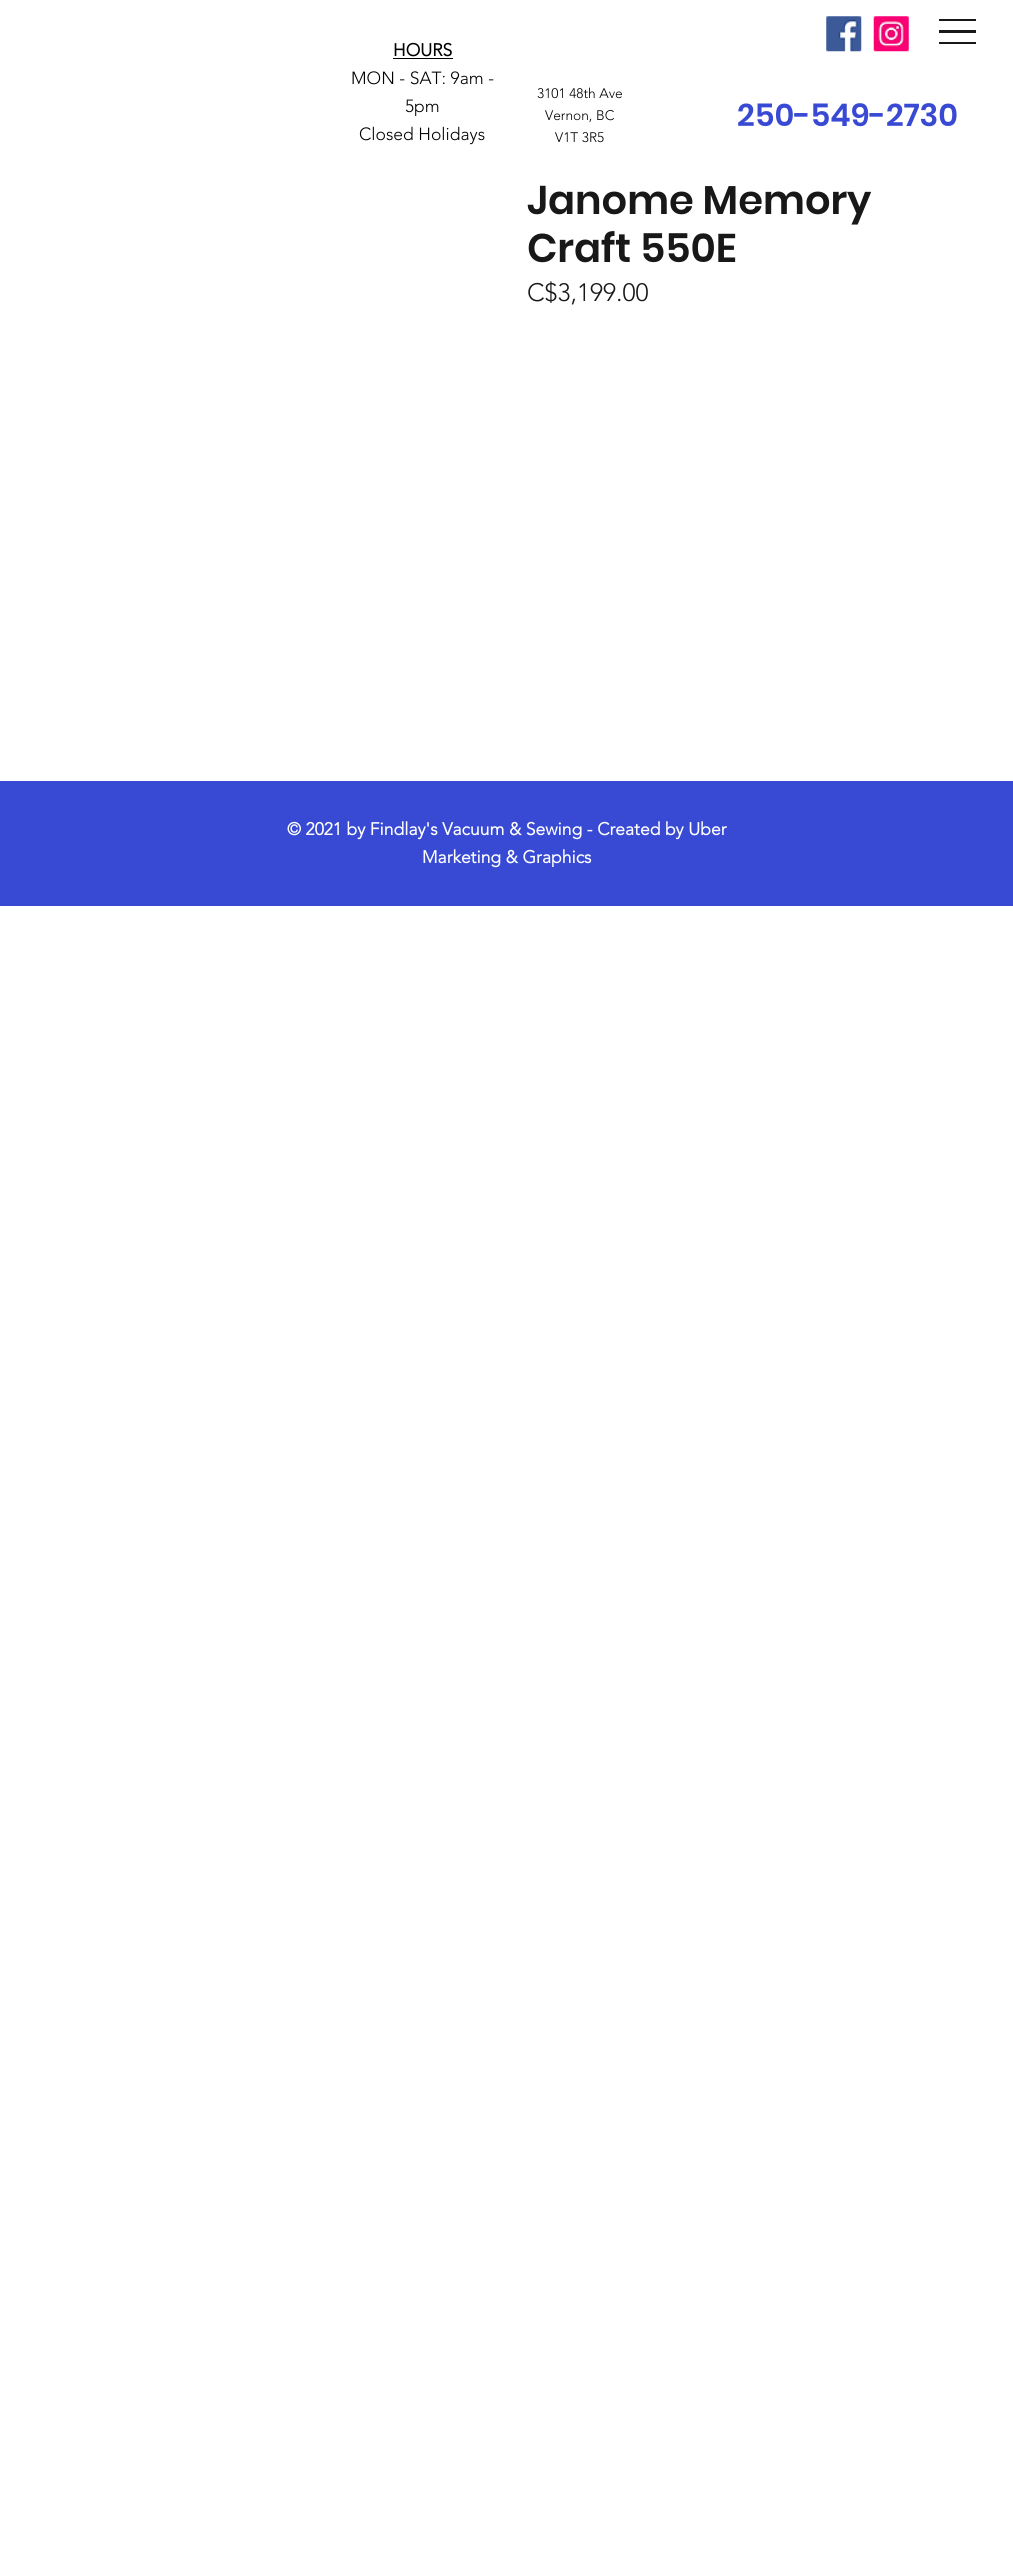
import math
import cairo


def paste(ctx, path, x, y, w, h):
	ctx.save()
	ctx.set_source_surface(cairo.ImageSurface.create_from_png(path), x, y)
	ctx.rectangle(x, y, w, h)
	ctx.fill()
	ctx.restore()

def draw(ctx):
	ctx.set_source_rgb(1, 1, 1)
	ctx.paint()
	paste(ctx, 'media/1.png', 826, 16, 36, 36)
	paste(ctx, 'media/2.png', 873, 16, 36, 36)
	ctx.set_source_rgb(0.094, 0.094, 0.094)
	ctx.rectangle(939, 19, 37, 2)
	ctx.rectangle(939, 30, 37, 3)
	ctx.rectangle(939, 42, 37, 2)
	ctx.fill()
	ctx.select_font_face('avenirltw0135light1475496', cairo.FONT_SLANT_NORMAL, cairo.FONT_WEIGHT_BOLD)
	ctx.set_font_size(17.5)
	ctx.set_source_rgb(0, 0, 0)
	ctx.move_to(393, 56)
	ctx.show_text('HOURS')
	ctx.rectangle(393, 58, 60, 1)
	ctx.fill()
	ctx.select_font_face('avenirltw0135light1475496 Light')
	for x, y, s in [
		(351, 84, 'MON - SAT: 9am -'),
		(405, 112, '5pm'),
		(359, 140, 'Closed Holidays'),
	]:
		ctx.move_to(x, y)
		ctx.show_text(s)
	ctx.set_font_size(13.75)
	for x, y, s in [
		(537, 98, '3101 48th Ave'),
		(545, 120, 'Vernon, BC'),
		(555, 142, 'V1T 3R5'),
	]:
		ctx.move_to(x, y)
		ctx.show_text(s)
	ctx.select_font_face('Poppins SemiBold')
	ctx.set_font_size(31.25)
	ctx.set_source_rgb(0.22, 0.29, 0.827)
	ctx.move_to(737, 126)
	ctx.show_text('250-549-2730')
	ctx.set_font_size(40)
	ctx.set_source_rgb(0.094, 0.094, 0.094)
	ctx.move_to(527, 214)
	ctx.show_text('Janome Memory')
	ctx.move_to(527, 262)
	ctx.show_text('Craft 550E')
	ctx.select_font_face('avenirltw0135light1475496 Light')
	ctx.set_font_size(25)
	ctx.move_to(527, 301)
	ctx.show_text('C$3,199.00')
	ctx.set_source_rgb(0.22, 0.29, 0.827)
	ctx.rectangle(0, 781, 1013, 125)
	ctx.fill()
	ctx.select_font_face('avenirltw0135light1475496', cairo.FONT_SLANT_NORMAL, cairo.FONT_WEIGHT_BOLD)
	ctx.set_font_size(17.5)
	ctx.set_source_rgb(1, 1, 1)
	ctx.move_to(287, 835)
	ctx.show_text('© 2021 by Findlay\'s Vacuum & Sewing - Created by Uber')
	ctx.move_to(422, 863)
	ctx.show_text('Marketing & Graphics')


surface = cairo.ImageSurface(cairo.FORMAT_RGB24, 1013, 2560)
ctx = cairo.Context(surface)
options = cairo.FontOptions()
options.set_hint_metrics(cairo.HINT_METRICS_OFF)
options.set_hint_style(cairo.HINT_STYLE_NONE)
ctx.set_font_options(options)
ctx.set_miter_limit(4)
draw(ctx)
surface.write_to_png('image.png')
